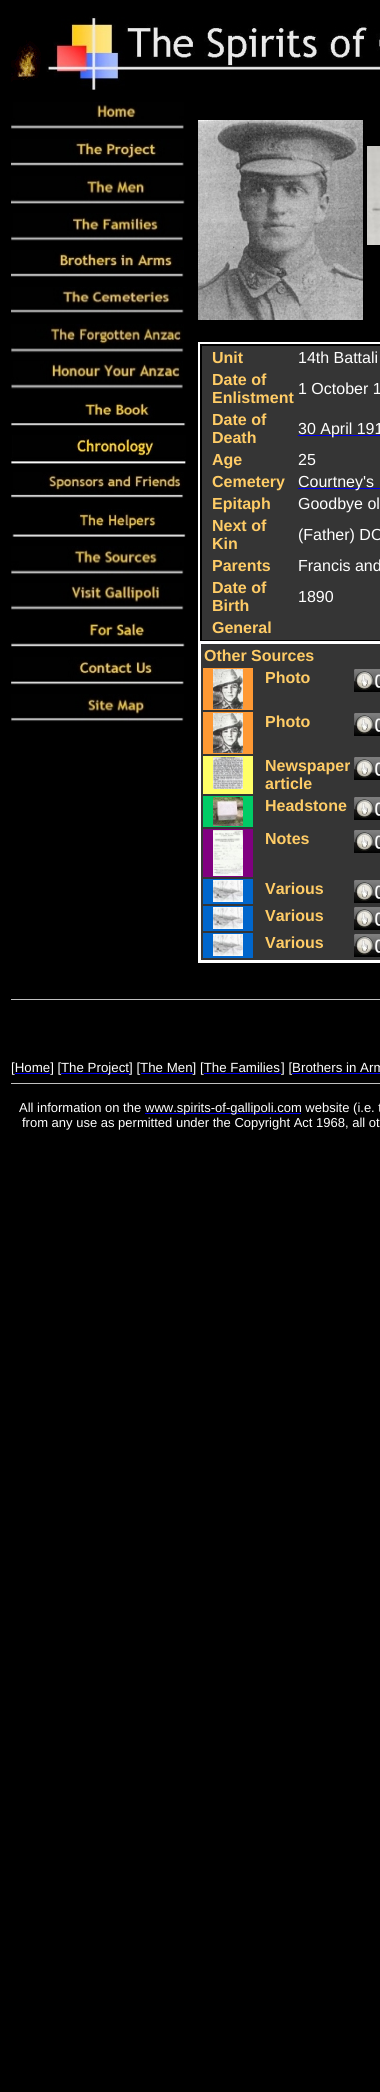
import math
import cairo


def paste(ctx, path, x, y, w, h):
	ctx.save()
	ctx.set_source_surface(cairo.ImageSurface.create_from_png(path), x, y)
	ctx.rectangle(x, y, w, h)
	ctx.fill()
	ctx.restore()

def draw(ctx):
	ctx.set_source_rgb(0, 0, 0)
	ctx.paint()
	paste(ctx, 'media/1.png', 11, 40, 30, 42)
	paste(ctx, 'media/2.png', 46, 16, 334, 74)
	paste(ctx, 'media/3.png', 11, 102, 173, 27)
	paste(ctx, 'media/4.png', 11, 139, 173, 27)
	paste(ctx, 'media/5.png', 11, 176, 174, 28)
	paste(ctx, 'media/6.png', 11, 213, 172, 28)
	paste(ctx, 'media/7.png', 11, 250, 173, 27)
	paste(ctx, 'media/8.png', 11, 287, 173, 26)
	paste(ctx, 'media/9.png', 11, 324, 173, 29)
	paste(ctx, 'media/10.png', 11, 361, 172, 28)
	paste(ctx, 'media/11.png', 11, 402, 175, 24)
	paste(ctx, 'media/12.png', 11, 435, 175, 29)
	paste(ctx, 'media/13.png', 11, 472, 173, 26)
	paste(ctx, 'media/14.png', 12, 509, 174, 28)
	paste(ctx, 'media/15.png', 11, 546, 173, 29)
	paste(ctx, 'media/16.png', 11, 583, 173, 27)
	paste(ctx, 'media/17.png', 11, 620, 174, 27)
	paste(ctx, 'media/18.png', 11, 657, 173, 28)
	paste(ctx, 'media/19.png', 11, 694, 173, 28)
	paste(ctx, 'media/20.png', 198, 120, 165, 200)
	paste(ctx, 'media/21.png', 367, 146, 13, 99)
	ctx.set_source_rgb(1, 1, 1)
	ctx.rectangle(198, 342, 182, 621)
	ctx.fill()
	ctx.set_source_rgb(0, 0, 0)
	ctx.rectangle(200, 344, 180, 297)
	ctx.fill()
	ctx.set_source_rgb(0.208, 0.208, 0.208)
	ctx.rectangle(202, 346, 178, 294)
	ctx.fill()
	ctx.select_font_face('Liberation Sans', cairo.FONT_SLANT_NORMAL, cairo.FONT_WEIGHT_BOLD)
	ctx.set_font_size(16)
	ctx.set_source_rgb(1, 0.8, 0.4)
	ctx.move_to(212, 363)
	ctx.show_text('Unit')
	ctx.select_font_face('Liberation Sans')
	ctx.set_source_rgb(1, 1, 1)
	ctx.move_to(298, 363)
	ctx.show_text('14th Battali')
	ctx.select_font_face('Liberation Sans', cairo.FONT_SLANT_NORMAL, cairo.FONT_WEIGHT_BOLD)
	ctx.set_source_rgb(1, 0.8, 0.4)
	ctx.move_to(212, 385)
	ctx.show_text('Date of')
	ctx.move_to(212, 403)
	ctx.show_text('Enlistment')
	ctx.select_font_face('Liberation Sans')
	ctx.set_source_rgb(1, 1, 1)
	ctx.move_to(298, 394)
	ctx.show_text('1 October 1')
	ctx.select_font_face('Liberation Sans', cairo.FONT_SLANT_NORMAL, cairo.FONT_WEIGHT_BOLD)
	ctx.set_source_rgb(1, 0.8, 0.4)
	ctx.move_to(212, 425)
	ctx.show_text('Date of')
	ctx.move_to(212, 443)
	ctx.show_text('Death')
	ctx.set_source_rgb(0, 0, 0.933)
	ctx.rectangle(298, 435, 82, 1)
	ctx.fill()
	ctx.select_font_face('Liberation Sans')
	ctx.set_source_rgb(1, 1, 1)
	ctx.move_to(298, 434)
	ctx.show_text('30 April 191')
	ctx.select_font_face('Liberation Sans', cairo.FONT_SLANT_NORMAL, cairo.FONT_WEIGHT_BOLD)
	ctx.set_source_rgb(1, 0.8, 0.4)
	ctx.move_to(212, 465)
	ctx.show_text('Age')
	ctx.select_font_face('Liberation Sans')
	ctx.set_source_rgb(1, 1, 1)
	ctx.move_to(298, 465)
	ctx.show_text('25')
	ctx.select_font_face('Liberation Sans', cairo.FONT_SLANT_NORMAL, cairo.FONT_WEIGHT_BOLD)
	ctx.set_source_rgb(1, 0.8, 0.4)
	ctx.move_to(212, 487)
	ctx.show_text('Cemetery')
	ctx.set_source_rgb(0, 0, 0.933)
	ctx.rectangle(298, 488, 82, 1)
	ctx.fill()
	ctx.select_font_face('Liberation Sans')
	ctx.set_source_rgb(1, 1, 1)
	ctx.move_to(298, 487)
	ctx.show_text('Courtney\'s')
	ctx.select_font_face('Liberation Sans', cairo.FONT_SLANT_NORMAL, cairo.FONT_WEIGHT_BOLD)
	ctx.set_source_rgb(1, 0.8, 0.4)
	ctx.move_to(212, 509)
	ctx.show_text('Epitaph')
	ctx.select_font_face('Liberation Sans')
	ctx.set_source_rgb(1, 1, 1)
	ctx.move_to(298, 509)
	ctx.show_text('Goodbye ol')
	ctx.select_font_face('Liberation Sans', cairo.FONT_SLANT_NORMAL, cairo.FONT_WEIGHT_BOLD)
	ctx.set_source_rgb(1, 0.8, 0.4)
	ctx.move_to(212, 531)
	ctx.show_text('Next of')
	ctx.move_to(212, 549)
	ctx.show_text('Kin')
	ctx.select_font_face('Liberation Sans')
	ctx.set_source_rgb(1, 1, 1)
	ctx.move_to(298, 540)
	ctx.show_text('(Father) DO')
	ctx.select_font_face('Liberation Sans', cairo.FONT_SLANT_NORMAL, cairo.FONT_WEIGHT_BOLD)
	ctx.set_source_rgb(1, 0.8, 0.4)
	ctx.move_to(212, 571)
	ctx.show_text('Parents')
	ctx.select_font_face('Liberation Sans')
	ctx.set_source_rgb(1, 1, 1)
	ctx.move_to(298, 571)
	ctx.show_text('Francis and')
	ctx.select_font_face('Liberation Sans', cairo.FONT_SLANT_NORMAL, cairo.FONT_WEIGHT_BOLD)
	ctx.set_source_rgb(1, 0.8, 0.4)
	ctx.move_to(212, 593)
	ctx.show_text('Date of')
	ctx.move_to(212, 611)
	ctx.show_text('Birth')
	ctx.select_font_face('Liberation Sans')
	ctx.set_source_rgb(1, 1, 1)
	ctx.move_to(298, 602)
	ctx.show_text('1890')
	ctx.select_font_face('Liberation Sans', cairo.FONT_SLANT_NORMAL, cairo.FONT_WEIGHT_BOLD)
	ctx.set_source_rgb(1, 0.8, 0.4)
	ctx.move_to(212, 633)
	ctx.show_text('General')
	ctx.set_source_rgb(0.208, 0.208, 0.208)
	ctx.rectangle(201, 644, 179, 316)
	ctx.fill()
	ctx.set_source_rgb(1, 0.8, 0.4)
	ctx.move_to(204, 661)
	ctx.show_text('Other Sources')
	ctx.set_source_rgb(1, 0.6, 0.2)
	ctx.rectangle(203, 668, 50, 42)
	ctx.fill()
	paste(ctx, 'media/22.png', 213, 669, 30, 40)
	ctx.set_source_rgb(1, 0.8, 0.4)
	ctx.move_to(265, 683)
	ctx.show_text('Photo')
	paste(ctx, 'media/23.png', 354, 669, 26, 23)
	ctx.set_source_rgb(1, 0.6, 0.2)
	ctx.rectangle(203, 712, 50, 42)
	ctx.fill()
	paste(ctx, 'media/22.png', 213, 713, 30, 40)
	ctx.set_source_rgb(1, 0.8, 0.4)
	ctx.move_to(265, 727)
	ctx.show_text('Photo')
	paste(ctx, 'media/23.png', 354, 713, 26, 23)
	ctx.set_source_rgb(1, 1, 0.4)
	ctx.rectangle(203, 756, 50, 38)
	ctx.fill()
	paste(ctx, 'media/24.png', 213, 757, 30, 32)
	ctx.set_source_rgb(1, 0.8, 0.4)
	ctx.move_to(265, 771)
	ctx.show_text('Newspaper')
	ctx.move_to(265, 789)
	ctx.show_text('article')
	paste(ctx, 'media/23.png', 354, 757, 26, 23)
	ctx.set_source_rgb(0, 0.8, 0.4)
	ctx.rectangle(203, 796, 50, 31)
	ctx.fill()
	paste(ctx, 'media/25.png', 213, 797, 30, 29)
	ctx.set_source_rgb(1, 0.8, 0.4)
	ctx.move_to(265, 811)
	ctx.show_text('Headstone')
	paste(ctx, 'media/23.png', 354, 797, 26, 23)
	ctx.set_source_rgb(0.502, 0, 0.502)
	ctx.rectangle(203, 829, 50, 48)
	ctx.fill()
	paste(ctx, 'media/26.png', 213, 830, 30, 46)
	ctx.set_source_rgb(1, 0.8, 0.4)
	ctx.move_to(265, 844)
	ctx.show_text('Notes')
	paste(ctx, 'media/23.png', 354, 830, 26, 23)
	ctx.set_source_rgb(0, 0.4, 0.8)
	ctx.rectangle(203, 879, 50, 25)
	ctx.fill()
	paste(ctx, 'media/27.png', 213, 880, 30, 22)
	ctx.set_source_rgb(1, 0.8, 0.4)
	ctx.move_to(265, 894)
	ctx.show_text('Various')
	paste(ctx, 'media/23.png', 354, 880, 26, 23)
	ctx.set_source_rgb(0, 0.4, 0.8)
	ctx.rectangle(203, 906, 50, 25)
	ctx.fill()
	paste(ctx, 'media/27.png', 213, 907, 30, 22)
	ctx.set_source_rgb(1, 0.8, 0.4)
	ctx.move_to(265, 921)
	ctx.show_text('Various')
	paste(ctx, 'media/23.png', 354, 907, 26, 23)
	ctx.set_source_rgb(0, 0.4, 0.8)
	ctx.rectangle(203, 933, 50, 25)
	ctx.fill()
	paste(ctx, 'media/27.png', 213, 934, 30, 22)
	ctx.set_source_rgb(1, 0.8, 0.4)
	ctx.move_to(265, 948)
	ctx.show_text('Various')
	paste(ctx, 'media/23.png', 354, 934, 26, 23)
	ctx.set_source_rgb(0.753, 0.753, 0.753)
	ctx.rectangle(11, 999, 369, 1)
	ctx.fill()
	ctx.select_font_face('Liberation Sans')
	ctx.set_font_size(13.3)
	ctx.set_source_rgb(1, 1, 1)
	ctx.move_to(11, 1072)
	ctx.show_text('[Home] [')
	ctx.set_source_rgb(0, 0, 0.933)
	ctx.rectangle(15, 1073, 35, 1)
	ctx.fill()
	ctx.rectangle(61, 1073, 69, 1)
	ctx.fill()
	ctx.set_source_rgb(1, 1, 1)
	ctx.move_to(61, 1072)
	ctx.show_text('The Project] [The Men] [The Families')
	ctx.set_source_rgb(0, 0, 0.933)
	ctx.rectangle(141, 1073, 52, 1)
	ctx.fill()
	ctx.rectangle(204, 1073, 77, 1)
	ctx.fill()
	ctx.set_source_rgb(1, 1, 1)
	ctx.move_to(281, 1072)
	ctx.show_text('] [Brothers in Arm')
	ctx.set_source_rgb(0, 0, 0.933)
	ctx.rectangle(292, 1073, 88, 1)
	ctx.fill()
	ctx.set_source_rgb(0.753, 0.753, 0.753)
	ctx.rectangle(11, 1083, 369, 1)
	ctx.fill()
	ctx.set_font_size(13)
	ctx.set_source_rgb(1, 1, 1)
	ctx.move_to(19, 1112)
	ctx.show_text('All information on the')
	ctx.set_source_rgb(0, 0, 0.933)
	ctx.rectangle(145, 1113, 156, 1)
	ctx.fill()
	ctx.set_source_rgb(1, 1, 1)
	ctx.move_to(145, 1112)
	ctx.show_text('www.spirits-of-gallipoli.com website (i.e. t')
	ctx.move_to(22, 1127)
	ctx.show_text('from any use as permitted under the Copyright Act 1968, all ot')


surface = cairo.ImageSurface(cairo.FORMAT_RGB24, 380, 2092)
ctx = cairo.Context(surface)
options = cairo.FontOptions()
options.set_hint_metrics(cairo.HINT_METRICS_OFF)
options.set_hint_style(cairo.HINT_STYLE_NONE)
ctx.set_font_options(options)
ctx.set_miter_limit(4)
draw(ctx)
surface.write_to_png('image.png')
